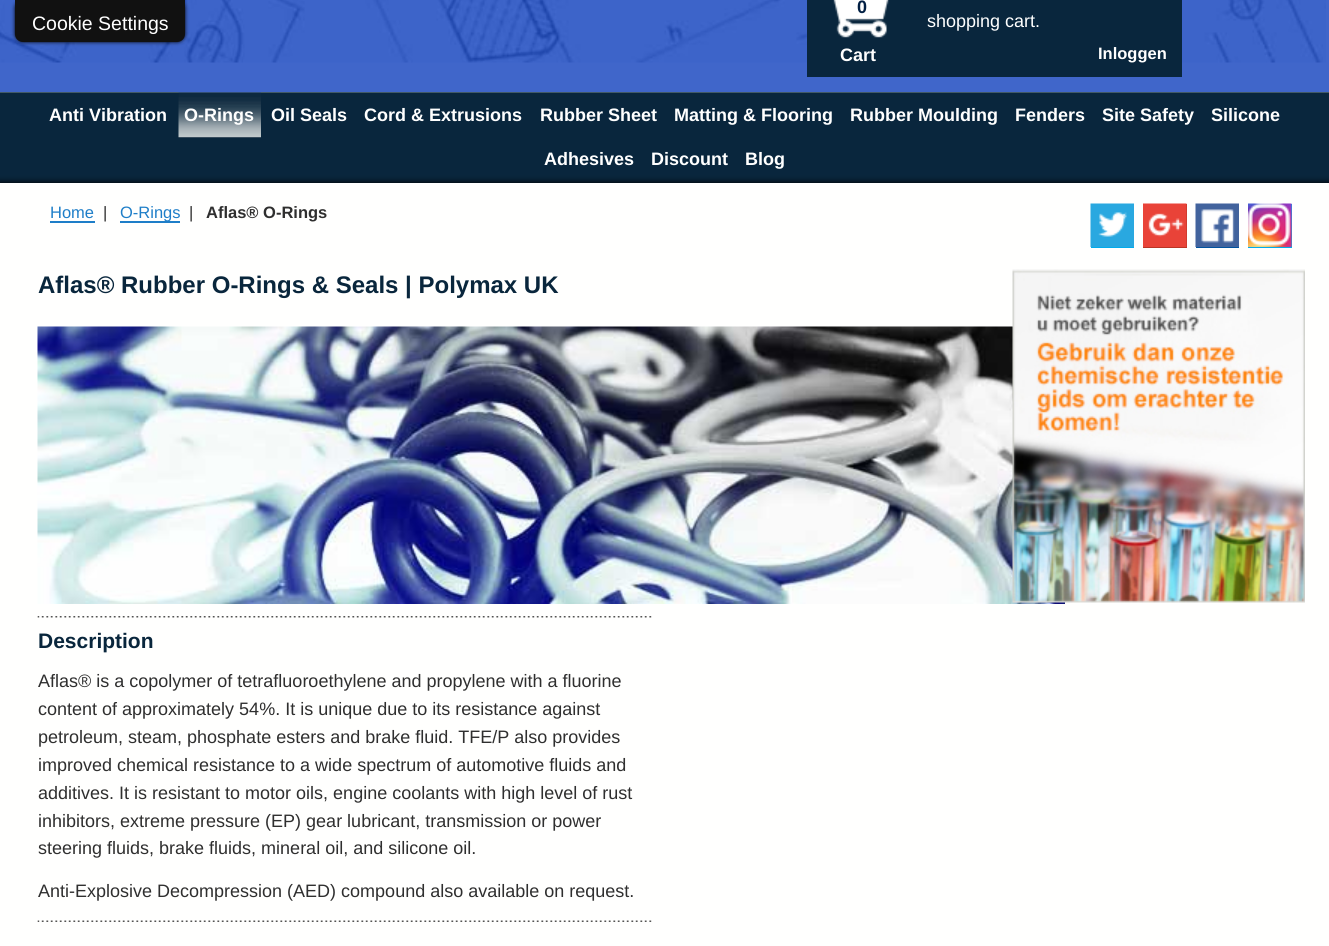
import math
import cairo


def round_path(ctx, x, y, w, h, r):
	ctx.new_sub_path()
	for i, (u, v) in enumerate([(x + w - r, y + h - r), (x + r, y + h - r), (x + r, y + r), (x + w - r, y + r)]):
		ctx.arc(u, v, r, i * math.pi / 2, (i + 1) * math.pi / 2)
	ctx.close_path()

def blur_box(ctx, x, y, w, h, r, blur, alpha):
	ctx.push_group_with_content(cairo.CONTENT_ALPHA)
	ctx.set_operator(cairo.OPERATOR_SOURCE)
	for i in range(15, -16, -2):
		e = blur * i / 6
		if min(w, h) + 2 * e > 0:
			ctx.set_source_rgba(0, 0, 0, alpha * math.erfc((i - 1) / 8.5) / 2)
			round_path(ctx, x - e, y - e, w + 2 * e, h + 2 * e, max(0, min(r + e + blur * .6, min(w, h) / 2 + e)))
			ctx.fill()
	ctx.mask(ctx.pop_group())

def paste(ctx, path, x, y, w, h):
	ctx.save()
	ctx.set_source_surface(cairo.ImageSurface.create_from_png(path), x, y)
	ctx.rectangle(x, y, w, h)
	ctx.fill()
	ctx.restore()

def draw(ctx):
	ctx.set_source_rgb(0.251, 0.4, 0.792)
	ctx.paint()
	paste(ctx, 'media/1.png', 0, 0, 1326, 63)
	ctx.set_source_rgb(0, 0, 0)
	blur_box(ctx, 15, 0, 170, 42, 8, 2, 1)
	ctx.set_source_rgb(0.067, 0.067, 0.067)
	ctx.new_path()
	ctx.move_to(15, 0)
	ctx.line_to(185, 0)
	ctx.line_to(185, 34)
	ctx.curve_to(185, 38.5, 181.5, 42, 177, 42)
	ctx.line_to(23, 42)
	ctx.curve_to(18.5, 42, 15, 38.5, 15, 34)
	ctx.close_path()
	ctx.fill()
	ctx.select_font_face('Liberation Sans')
	ctx.set_font_size(19.5)
	ctx.set_source_rgb(1, 1, 1)
	ctx.move_to(32, 30)
	ctx.show_text('Cookie Settings')
	ctx.set_source_rgb(0.255, 0.349, 0.4)
	ctx.rectangle(0, 92, 1329, 1)
	ctx.fill()
	ctx.set_source_rgb(0.039, 0.149, 0.239)
	ctx.rectangle(807, 0, 375, 77)
	ctx.fill()
	paste(ctx, 'media/2.png', 833, 0, 56, 38)
	ctx.select_font_face('Liberation Sans', cairo.FONT_SLANT_NORMAL, cairo.FONT_WEIGHT_BOLD)
	ctx.set_font_size(18)
	ctx.set_source_rgb(0.008, 0.125, 0.267)
	ctx.move_to(857, 13)
	ctx.show_text('0')
	ctx.set_source_rgb(1, 1, 1)
	ctx.move_to(840, 61)
	ctx.show_text('Cart')
	ctx.select_font_face('Liberation Sans')
	ctx.move_to(927, 27)
	ctx.show_text('shopping cart.')
	ctx.select_font_face('Liberation Sans', cairo.FONT_SLANT_NORMAL, cairo.FONT_WEIGHT_BOLD)
	ctx.set_font_size(16.5)
	ctx.move_to(1098, 59)
	ctx.show_text('Inloggen')
	ctx.set_source_rgb(0.039, 0.149, 0.239)
	ctx.rectangle(0, 93, 1329, 90)
	ctx.fill()
	ctx.set_font_size(18)
	ctx.set_source_rgb(1, 1, 1)
	ctx.move_to(49, 121)
	ctx.show_text('Anti Vibration')
	paste(ctx, 'media/3.png', 178, 92, 83, 46)
	for x, y, s in [
		(184, 121, 'O-Rings'),
		(271, 121, 'Oil Seals'),
		(364, 121, 'Cord & Extrusions'),
		(540, 121, 'Rubber Sheet'),
		(674, 121, 'Matting & Flooring'),
		(850, 121, 'Rubber Moulding'),
		(1015, 121, 'Fenders'),
		(1102, 121, 'Site Safety'),
		(1211, 121, 'Silicone'),
		(544, 165, 'Adhesives'),
		(651, 165, 'Discount'),
		(745, 165, 'Blog'),
	]:
		ctx.move_to(x, y)
		ctx.show_text(s)
	ctx.set_source_rgb(0, 0, 0)
	blur_box(ctx, -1, 182, 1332, 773, 0, 3, 0.9)
	ctx.set_source_rgb(1, 1, 0.996)
	ctx.rectangle(0, 183, 1329, 763)
	ctx.fill()
	ctx.select_font_face('Liberation Sans')
	ctx.set_font_size(16.5)
	ctx.set_source_rgb(0.118, 0.494, 0.784)
	ctx.move_to(50, 218)
	ctx.show_text('Home')
	ctx.rectangle(50, 221, 45, 2)
	ctx.fill()
	ctx.set_source_rgb(0.184, 0.184, 0.184)
	ctx.move_to(103, 218)
	ctx.show_text('|')
	ctx.set_source_rgb(0.118, 0.494, 0.784)
	ctx.rectangle(120, 221, 60, 2)
	ctx.fill()
	ctx.move_to(120, 218)
	ctx.show_text('O-Rings')
	ctx.set_source_rgb(0.184, 0.184, 0.184)
	ctx.move_to(189, 218)
	ctx.show_text('|')
	ctx.select_font_face('Liberation Sans', cairo.FONT_SLANT_NORMAL, cairo.FONT_WEIGHT_BOLD)
	ctx.move_to(206, 218)
	ctx.show_text('Aflas® O-Rings')
	ctx.set_source_rgb(0, 0.675, 0.929)
	ctx.rectangle(1091, 247, 43, 1)
	ctx.fill()
	paste(ctx, 'media/4.png', 1090, 203, 44, 44)
	ctx.set_source_rgb(0.725, 0.208, 0.145)
	ctx.rectangle(1143, 204, 44, 44)
	ctx.fill()
	paste(ctx, 'media/5.png', 1143, 203, 44, 44)
	ctx.set_source_rgb(0, 0.322, 0.624)
	ctx.rectangle(1196, 247, 43, 1)
	ctx.fill()
	paste(ctx, 'media/6.png', 1195, 203, 44, 44)
	ctx.set_source_rgb(0, 0.675, 0.929)
	ctx.rectangle(1248, 204, 44, 44)
	ctx.fill()
	paste(ctx, 'media/7.png', 1248, 203, 44, 44)
	ctx.set_font_size(24)
	ctx.set_source_rgb(0.039, 0.149, 0.235)
	ctx.move_to(38, 293)
	ctx.show_text('Aflas® Rubber O-Rings & Seals | Polymax UK')
	paste(ctx, 'media/8.png', 37, 326, 1028, 278)
	paste(ctx, 'media/9.png', 37, 616, 615, 2)
	ctx.set_font_size(21)
	ctx.move_to(38, 648)
	ctx.show_text('Description')
	ctx.select_font_face('Liberation Sans')
	ctx.set_font_size(18)
	ctx.set_source_rgb(0.184, 0.184, 0.184)
	for x, y, s in [
		(38, 687, 'Aflas® is a copolymer of tetrafluoroethylene and propylene with a fluorine'),
		(38, 715, 'content of approximately 54%. It is unique due to its resistance against'),
		(38, 743, 'petroleum, steam, phosphate esters and brake fluid. TFE/P also provides'),
		(38, 771, 'improved chemical resistance to a wide spectrum of automotive fluids and'),
		(38, 799, 'additives. It is resistant to motor oils, engine coolants with high level of rust'),
		(38, 827, 'inhibitors, extreme pressure (EP) gear lubricant, transmission or power'),
		(38, 854, 'steering fluids, brake fluids, mineral oil, and silicone oil.'),
		(38, 897, 'Anti-Explosive Decompression (AED) compound also available on request.'),
	]:
		ctx.move_to(x, y)
		ctx.show_text(s)
	paste(ctx, 'media/10.png', 37, 920, 615, 2)
	paste(ctx, 'media/11.png', 1012, 269, 293, 334)


surface = cairo.ImageSurface(cairo.FORMAT_RGB24, 1329, 946)
ctx = cairo.Context(surface)
options = cairo.FontOptions()
options.set_hint_metrics(cairo.HINT_METRICS_OFF)
options.set_hint_style(cairo.HINT_STYLE_NONE)
ctx.set_font_options(options)
ctx.set_miter_limit(4)
draw(ctx)
surface.write_to_png('image.png')
